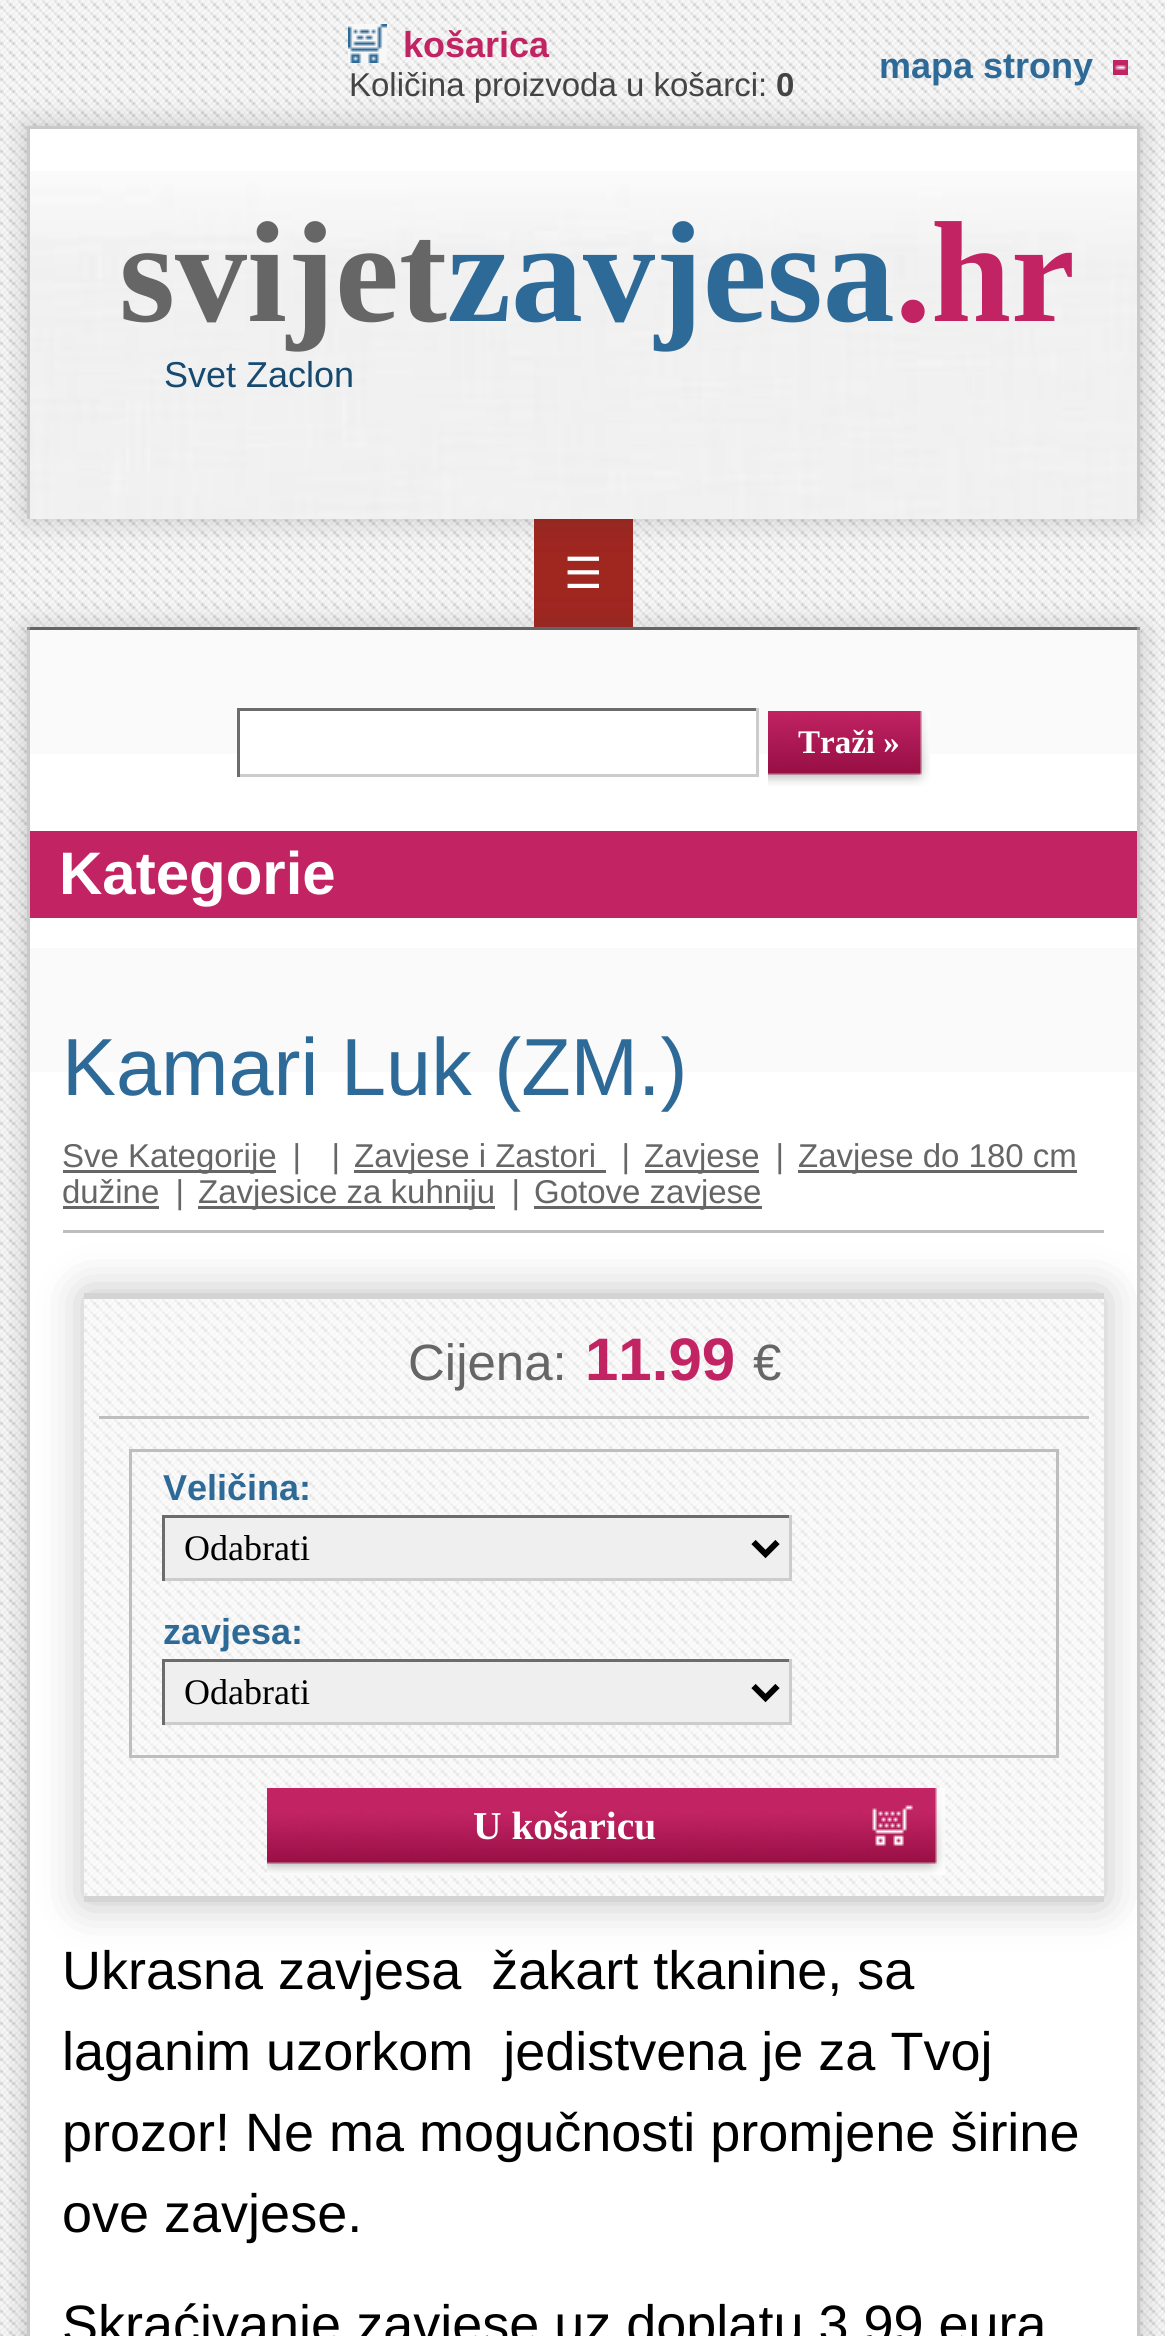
import math
import cairo


def round_path(ctx, x, y, w, h, r):
	ctx.new_sub_path()
	for i, (u, v) in enumerate([(x + w - r, y + h - r), (x + r, y + h - r), (x + r, y + r), (x + w - r, y + r)]):
		ctx.arc(u, v, r, i * math.pi / 2, (i + 1) * math.pi / 2)
	ctx.close_path()

def blur_box(ctx, x, y, w, h, r, blur, alpha):
	ctx.push_group_with_content(cairo.CONTENT_ALPHA)
	ctx.set_operator(cairo.OPERATOR_SOURCE)
	for i in range(15, -16, -2):
		e = blur * i / 6
		if min(w, h) + 2 * e > 0:
			ctx.set_source_rgba(0, 0, 0, alpha * math.erfc((i - 1) / 8.5) / 2)
			round_path(ctx, x - e, y - e, w + 2 * e, h + 2 * e, max(0, min(r + e + blur * .6, min(w, h) / 2 + e)))
			ctx.fill()
	ctx.mask(ctx.pop_group())

def paste(ctx, path, x, y, w, h):
	ctx.save()
	ctx.set_source_surface(cairo.ImageSurface.create_from_png(path), x, y)
	ctx.rectangle(x, y, w, h)
	ctx.fill()
	ctx.restore()

def draw(ctx):
	ctx.set_source_rgb(1, 1, 1)
	ctx.paint()
	paste(ctx, 'media/1.png', 0, 0, 1165, 2336)
	paste(ctx, 'media/2.png', 348, 24, 39, 39)
	ctx.select_font_face('Liberation Sans', cairo.FONT_SLANT_NORMAL, cairo.FONT_WEIGHT_BOLD)
	ctx.set_font_size(36)
	ctx.set_source_rgb(0.761, 0.141, 0.388)
	ctx.move_to(403, 57)
	ctx.show_text('košarica')
	ctx.select_font_face('Liberation Sans')
	ctx.set_font_size(33)
	ctx.set_source_rgb(0.267, 0.267, 0.267)
	ctx.move_to(349, 96)
	ctx.show_text('Količina proizvoda u košarci:')
	ctx.select_font_face('Liberation Sans', cairo.FONT_SLANT_NORMAL, cairo.FONT_WEIGHT_BOLD)
	ctx.move_to(776, 96)
	ctx.show_text('0')
	ctx.set_font_size(36)
	ctx.set_source_rgb(0.18, 0.416, 0.592)
	ctx.move_to(879, 78)
	ctx.show_text('mapa strony')
	paste(ctx, 'media/3.png', 1113, 60, 15, 15)
	ctx.set_source_rgb(0.627, 0.149, 0.125)
	ctx.rectangle(534, 519, 99, 108)
	ctx.fill()
	ctx.set_source_rgb(0.196, 0.196, 0.196)
	blur_box(ctx, 27, 126, 1113, 393, 0, 15, 0.25)
	ctx.set_source_rgb(1, 1, 1)
	ctx.rectangle(30, 129, 1107, 42)
	ctx.fill()
	paste(ctx, 'media/4.png', 30, 171, 1107, 348)
	ctx.set_source_rgb(0.788, 0.788, 0.788)
	ctx.rectangle(27, 126, 1113, 3)
	ctx.rectangle(1137, 126, 3, 393)
	ctx.rectangle(27, 126, 3, 393)
	ctx.fill()
	ctx.select_font_face('Liberation Serif', cairo.FONT_SLANT_NORMAL, cairo.FONT_WEIGHT_BOLD)
	ctx.set_font_size(144)
	ctx.set_source_rgb(0.4, 0.4, 0.4)
	ctx.move_to(119, 321)
	ctx.show_text('svijet')
	ctx.set_source_rgb(0.18, 0.416, 0.592)
	ctx.move_to(447, 321)
	ctx.show_text('zavjesa')
	ctx.set_source_rgb(0.761, 0.141, 0.388)
	ctx.move_to(895, 321)
	ctx.show_text('.hr')
	ctx.select_font_face('Liberation Sans')
	ctx.set_font_size(36)
	ctx.set_source_rgb(0.086, 0.29, 0.443)
	ctx.move_to(164, 387)
	ctx.show_text('Svet Zaclon')
	ctx.select_font_face('DejaVu Sans')
	ctx.set_font_size(43)
	ctx.set_source_rgb(1, 1, 1)
	ctx.move_to(564, 588)
	ctx.show_text('☰')
	ctx.set_source_rgb(0.427, 0.424, 0.424)
	ctx.rectangle(27, 627, 1113, 3)
	ctx.fill()
	ctx.set_source_rgb(0.588, 0.576, 0.576)
	ctx.rectangle(1137, 627, 3, 3)
	ctx.rectangle(27, 627, 3, 3)
	ctx.fill()
	ctx.set_source_rgb(0.196, 0.196, 0.196)
	blur_box(ctx, 27, 630, 1113, 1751, 0, 15, 0.25)
	ctx.set_source_rgb(1, 1, 1)
	ctx.rectangle(30, 754, 1107, 1582)
	ctx.fill()
	ctx.set_source_rgb(0.788, 0.788, 0.788)
	ctx.rectangle(1137, 630, 3, 1706)
	ctx.rectangle(27, 630, 3, 1706)
	ctx.fill()
	ctx.set_source_rgb(0.98, 0.98, 0.98)
	ctx.rectangle(30, 630, 1107, 124)
	ctx.fill()
	ctx.set_source_rgb(1, 1, 1)
	ctx.rectangle(240, 711, 516, 43)
	ctx.fill()
	ctx.set_source_rgb(0.424, 0.424, 0.424)
	ctx.rectangle(237, 708, 522, 3)
	ctx.fill()
	ctx.set_source_rgb(0.8, 0.8, 0.8)
	ctx.rectangle(756, 708, 3, 69)
	ctx.rectangle(237, 774, 522, 3)
	ctx.fill()
	ctx.set_source_rgb(0.424, 0.424, 0.424)
	ctx.rectangle(237, 708, 3, 69)
	ctx.fill()
	paste(ctx, 'media/5.png', 768, 711, 162, 75)
	ctx.select_font_face('Liberation Serif', cairo.FONT_SLANT_NORMAL, cairo.FONT_WEIGHT_BOLD)
	ctx.set_font_size(33)
	ctx.set_source_rgb(1, 1, 1)
	ctx.move_to(798, 753)
	ctx.show_text('Traži »')
	ctx.set_source_rgb(0.761, 0.141, 0.388)
	ctx.rectangle(30, 831, 1107, 87)
	ctx.fill()
	ctx.select_font_face('Liberation Sans', cairo.FONT_SLANT_NORMAL, cairo.FONT_WEIGHT_BOLD)
	ctx.set_font_size(60)
	ctx.set_source_rgb(1, 1, 1)
	ctx.move_to(59, 894)
	ctx.show_text('Kategorie')
	ctx.set_source_rgb(0.98, 0.98, 0.98)
	ctx.rectangle(30, 948, 1107, 124)
	ctx.fill()
	ctx.select_font_face('Liberation Sans')
	ctx.set_font_size(81)
	ctx.set_source_rgb(0.18, 0.416, 0.592)
	ctx.move_to(62, 1095)
	ctx.show_text('Kamari Luk (ZM.)')
	ctx.set_source_rgb(0.745, 0.745, 0.745)
	ctx.rectangle(63, 1230, 1041, 3)
	ctx.fill()
	ctx.set_source_rgb(0.4, 0.4, 0.4)
	ctx.rectangle(63, 1170, 213, 3)
	ctx.fill()
	ctx.set_font_size(33)
	ctx.move_to(62, 1167)
	ctx.show_text('Sve Kategorije')
	ctx.select_font_face('Liberation Sans', cairo.FONT_SLANT_ITALIC)
	ctx.move_to(292, 1167)
	ctx.show_text('|')
	ctx.move_to(331, 1167)
	ctx.show_text('|')
	ctx.rectangle(354, 1170, 252, 3)
	ctx.fill()
	ctx.select_font_face('Liberation Sans')
	ctx.move_to(354, 1167)
	ctx.show_text('Zavjese i Zastori')
	ctx.select_font_face('Liberation Sans', cairo.FONT_SLANT_ITALIC)
	ctx.move_to(621, 1167)
	ctx.show_text('|')
	ctx.rectangle(645, 1170, 114, 3)
	ctx.fill()
	ctx.select_font_face('Liberation Sans')
	ctx.move_to(644, 1167)
	ctx.show_text('Zavjese')
	ctx.select_font_face('Liberation Sans', cairo.FONT_SLANT_ITALIC)
	ctx.move_to(775, 1167)
	ctx.show_text('|')
	ctx.rectangle(798, 1170, 279, 3)
	ctx.fill()
	ctx.select_font_face('Liberation Sans')
	ctx.move_to(798, 1167)
	ctx.show_text('Zavjese do 180 cm')
	ctx.move_to(62, 1203)
	ctx.show_text('dužine')
	ctx.rectangle(63, 1206, 96, 3)
	ctx.fill()
	ctx.select_font_face('Liberation Sans', cairo.FONT_SLANT_ITALIC)
	ctx.move_to(175, 1203)
	ctx.show_text('|')
	ctx.rectangle(198, 1206, 297, 3)
	ctx.fill()
	ctx.select_font_face('Liberation Sans')
	ctx.move_to(198, 1203)
	ctx.show_text('Zavjesice za kuhniju')
	ctx.select_font_face('Liberation Sans', cairo.FONT_SLANT_ITALIC)
	ctx.move_to(511, 1203)
	ctx.show_text('|')
	ctx.rectangle(534, 1206, 228, 3)
	ctx.fill()
	ctx.select_font_face('Liberation Sans')
	ctx.move_to(534, 1203)
	ctx.show_text('Gotove zavjese')
	ctx.save()
	ctx.rectangle(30, 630, 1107, 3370)
	ctx.clip()
	ctx.set_source_rgb(0.188, 0.184, 0.184)
	blur_box(ctx, 84, 1293, 1020, 609, 0, 22.5, 0.3)
	ctx.restore()
	paste(ctx, 'media/6.png', 84, 1299, 1020, 597)
	ctx.set_source_rgb(0.831, 0.831, 0.831)
	ctx.rectangle(84, 1293, 1020, 6)
	ctx.rectangle(84, 1896, 1020, 6)
	ctx.fill()
	ctx.set_source_rgb(0.745, 0.745, 0.745)
	ctx.rectangle(99, 1416, 990, 3)
	ctx.fill()
	ctx.set_font_size(51)
	ctx.set_source_rgb(0.4, 0.4, 0.4)
	ctx.move_to(408, 1380)
	ctx.show_text('Cijena:')
	ctx.select_font_face('Liberation Sans', cairo.FONT_SLANT_NORMAL, cairo.FONT_WEIGHT_BOLD)
	ctx.set_font_size(60)
	ctx.set_source_rgb(0.761, 0.141, 0.388)
	ctx.move_to(585, 1380)
	ctx.show_text('11.99')
	ctx.select_font_face('Liberation Sans')
	ctx.set_font_size(51)
	ctx.set_source_rgb(0.4, 0.4, 0.4)
	ctx.move_to(753, 1380)
	ctx.show_text('€')
	ctx.rectangle(130.5, 1450.5, 927, 306)
	ctx.set_source_rgb(0.745, 0.745, 0.745)
	ctx.set_line_width(3)
	ctx.stroke()
	ctx.select_font_face('Liberation Sans', cairo.FONT_SLANT_NORMAL, cairo.FONT_WEIGHT_BOLD)
	ctx.set_font_size(36)
	ctx.set_source_rgb(0.18, 0.416, 0.592)
	ctx.move_to(163, 1500)
	ctx.show_text('Veličina:')
	ctx.set_source_rgb(0.937, 0.937, 0.937)
	ctx.rectangle(165, 1518, 624, 60)
	ctx.fill()
	ctx.set_source_rgb(0.424, 0.424, 0.424)
	ctx.rectangle(162, 1515, 630, 3)
	ctx.fill()
	ctx.set_source_rgb(0.8, 0.8, 0.8)
	ctx.rectangle(789, 1515, 3, 66)
	ctx.rectangle(162, 1578, 630, 3)
	ctx.fill()
	ctx.set_source_rgb(0.424, 0.424, 0.424)
	ctx.rectangle(162, 1515, 3, 66)
	ctx.fill()
	ctx.new_path()
	ctx.move_to(753.5, 1542)
	ctx.line_to(765.5, 1554)
	ctx.line_to(777.5, 1542)
	ctx.set_source_rgb(0, 0, 0)
	ctx.set_line_width(6)
	ctx.stroke()
	ctx.select_font_face('Liberation Serif')
	ctx.move_to(184, 1560)
	ctx.show_text('Odabrati')
	ctx.select_font_face('Liberation Sans', cairo.FONT_SLANT_NORMAL, cairo.FONT_WEIGHT_BOLD)
	ctx.set_source_rgb(0.18, 0.416, 0.592)
	ctx.move_to(163, 1644)
	ctx.show_text('zavjesa:')
	ctx.set_source_rgb(0.937, 0.937, 0.937)
	ctx.rectangle(165, 1662, 624, 60)
	ctx.fill()
	ctx.set_source_rgb(0.424, 0.424, 0.424)
	ctx.rectangle(162, 1659, 630, 3)
	ctx.fill()
	ctx.set_source_rgb(0.8, 0.8, 0.8)
	ctx.rectangle(789, 1659, 3, 66)
	ctx.rectangle(162, 1722, 630, 3)
	ctx.fill()
	ctx.set_source_rgb(0.424, 0.424, 0.424)
	ctx.rectangle(162, 1659, 3, 66)
	ctx.fill()
	ctx.new_path()
	ctx.move_to(753.5, 1686)
	ctx.line_to(765.5, 1698)
	ctx.line_to(777.5, 1686)
	ctx.set_source_rgb(0, 0, 0)
	ctx.stroke()
	ctx.select_font_face('Liberation Serif')
	ctx.move_to(184, 1704)
	ctx.show_text('Odabrati')
	paste(ctx, 'media/7.png', 267, 1788, 678, 87)
	ctx.select_font_face('Liberation Serif', cairo.FONT_SLANT_NORMAL, cairo.FONT_WEIGHT_BOLD)
	ctx.set_font_size(39.5)
	ctx.set_source_rgb(1, 1, 1)
	ctx.move_to(473, 1839)
	ctx.show_text('U košaricu')
	ctx.select_font_face('Liberation Sans')
	ctx.set_font_size(54)
	ctx.set_source_rgb(0, 0, 0)
	for x, y, s in [
		(62, 1989, 'Ukrasna zavjesa  žakart tkanine, sa'),
		(62, 2070, 'laganim uzorkom  jedistvena je za Tvoj'),
		(62, 2151, 'prozor! Ne ma mogučnosti promjene širine'),
		(62, 2232, 'ove zavjese.'),
		(62, 2343, 'Skraćivanje zavjese uz doplatu 3,99 eura'),
	]:
		ctx.move_to(x, y)
		ctx.show_text(s)


surface = cairo.ImageSurface(cairo.FORMAT_RGB24, 1165, 2336)
ctx = cairo.Context(surface)
options = cairo.FontOptions()
options.set_hint_metrics(cairo.HINT_METRICS_OFF)
options.set_hint_style(cairo.HINT_STYLE_NONE)
ctx.set_font_options(options)
ctx.set_miter_limit(4)
draw(ctx)
surface.write_to_png('image.png')
